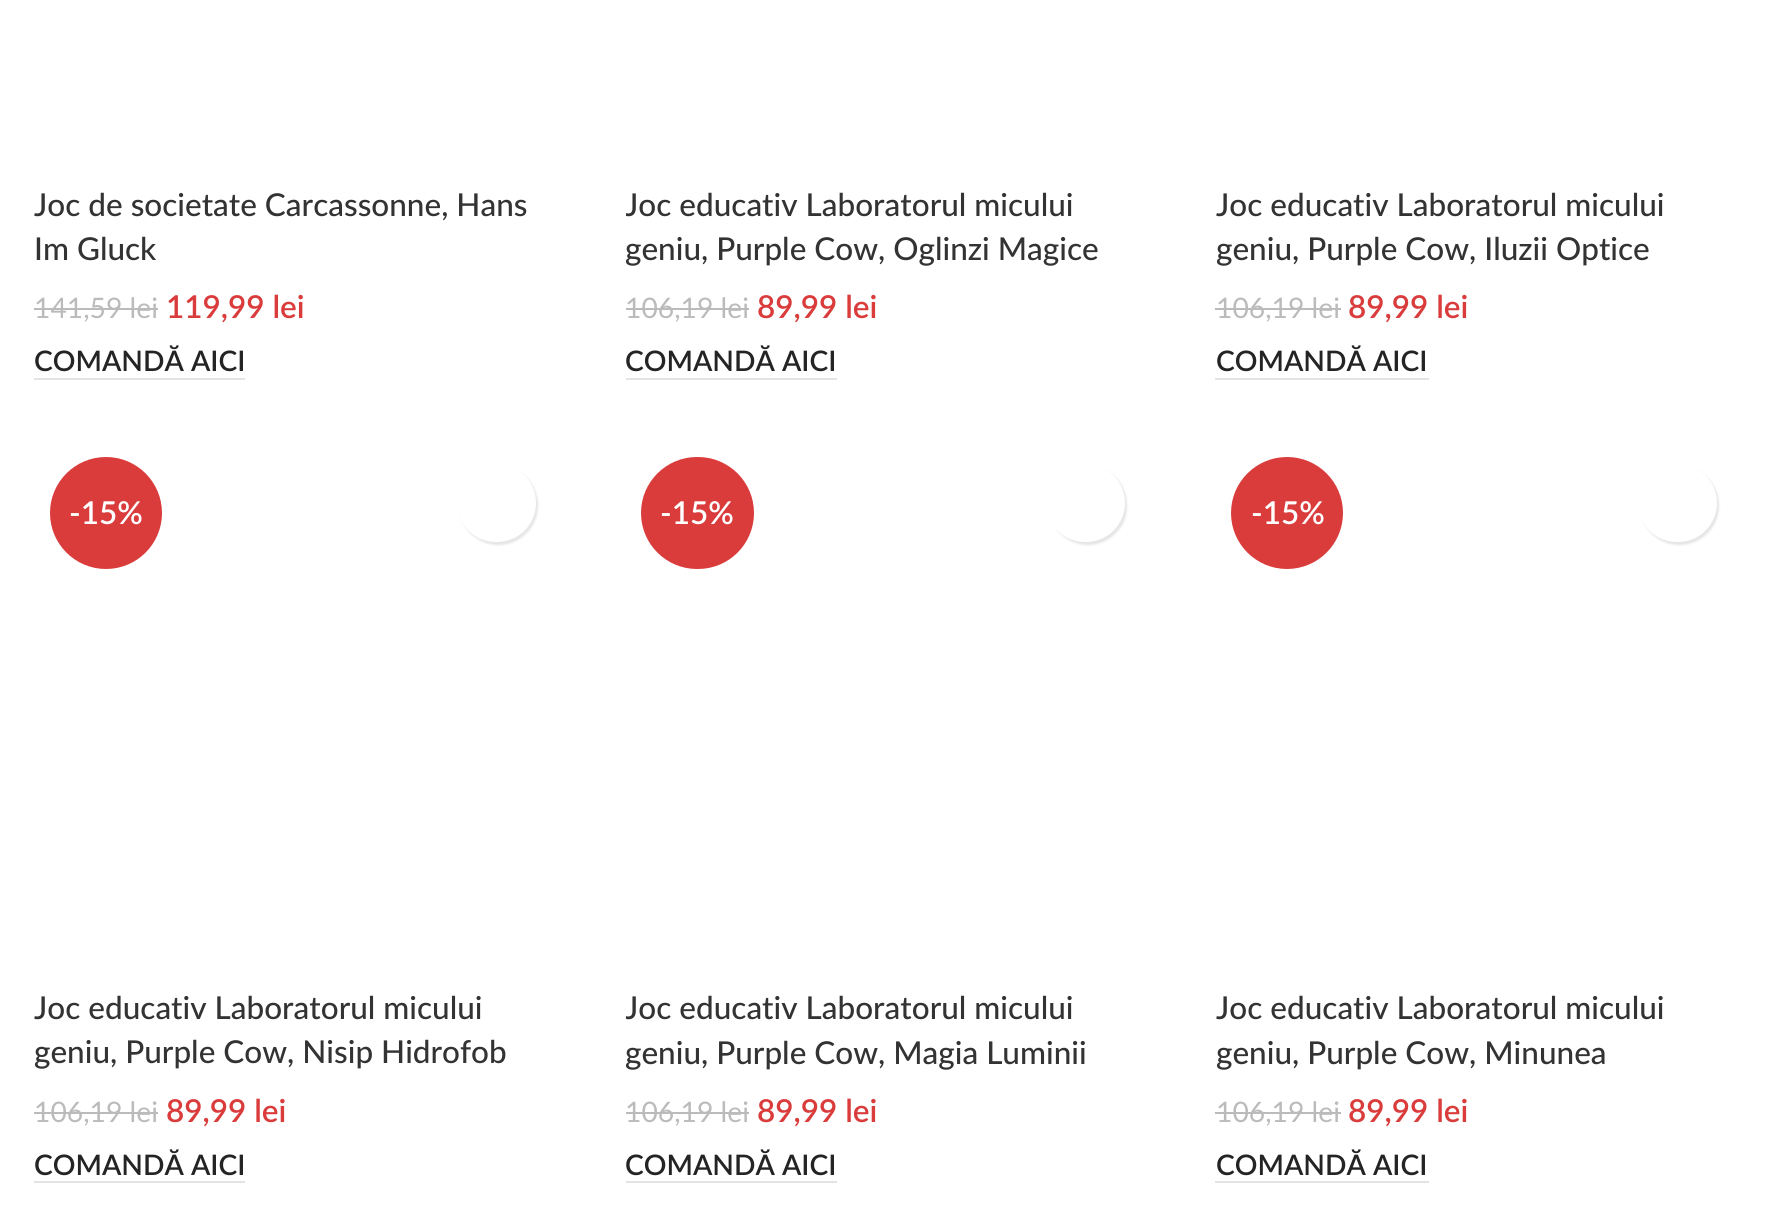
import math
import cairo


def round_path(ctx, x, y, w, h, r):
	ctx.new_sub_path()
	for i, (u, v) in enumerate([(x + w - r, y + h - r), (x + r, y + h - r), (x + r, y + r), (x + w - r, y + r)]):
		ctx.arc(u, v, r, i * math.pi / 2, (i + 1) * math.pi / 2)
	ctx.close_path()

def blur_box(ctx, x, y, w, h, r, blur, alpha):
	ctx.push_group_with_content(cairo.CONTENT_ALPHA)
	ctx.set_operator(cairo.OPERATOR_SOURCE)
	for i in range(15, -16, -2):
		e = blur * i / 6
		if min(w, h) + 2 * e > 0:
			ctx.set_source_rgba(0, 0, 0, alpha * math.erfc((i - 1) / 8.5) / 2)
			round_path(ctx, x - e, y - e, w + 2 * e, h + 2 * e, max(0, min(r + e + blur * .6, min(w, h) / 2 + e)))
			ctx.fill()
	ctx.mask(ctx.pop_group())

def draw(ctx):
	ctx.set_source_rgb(1, 1, 1)
	ctx.paint()
	ctx.select_font_face('Lato Medium')
	ctx.set_font_size(31.5)
	ctx.set_source_rgb(0.2, 0.2, 0.2)
	ctx.move_to(34, 216)
	ctx.show_text('Joc de societate Carcassonne, Hans')
	ctx.move_to(34, 260)
	ctx.show_text('Im Gluck')
	ctx.select_font_face('Lato')
	ctx.set_font_size(28.25)
	ctx.set_source_rgb(0.733, 0.733, 0.733)
	ctx.move_to(34, 318)
	ctx.show_text('141,59 lei')
	ctx.rectangle(34, 308, 124, 2)
	ctx.fill()
	ctx.select_font_face('Lato SemiBold')
	ctx.set_font_size(31.5)
	ctx.set_source_rgb(0.855, 0.235, 0.235)
	ctx.move_to(166, 318)
	ctx.show_text('119,99 lei')
	ctx.set_source_rgb(0.894, 0.894, 0.894)
	ctx.rectangle(34, 378, 211, 2)
	ctx.fill()
	ctx.set_font_size(28.25)
	ctx.set_source_rgb(0.141, 0.141, 0.141)
	ctx.move_to(34, 371)
	ctx.show_text('COMANDĂ AICI')
	ctx.save()
	ctx.rectangle(626, 182, 522, 88)
	ctx.clip()
	ctx.select_font_face('Lato Medium')
	ctx.set_font_size(31.5)
	ctx.set_source_rgb(0.2, 0.2, 0.2)
	ctx.move_to(625, 216)
	ctx.show_text('Joc educativ Laboratorul micului')
	ctx.move_to(625, 260)
	ctx.show_text('geniu, Purple Cow, Oglinzi Magice')
	ctx.restore()
	ctx.select_font_face('Lato')
	ctx.set_source_rgb(0.733, 0.733, 0.733)
	ctx.move_to(625, 318)
	ctx.show_text('106,19 lei')
	ctx.rectangle(626, 308, 123, 2)
	ctx.fill()
	ctx.select_font_face('Lato SemiBold')
	ctx.set_font_size(31.5)
	ctx.set_source_rgb(0.855, 0.235, 0.235)
	ctx.move_to(757, 318)
	ctx.show_text('89,99 lei')
	ctx.set_source_rgb(0.894, 0.894, 0.894)
	ctx.rectangle(626, 378, 211, 2)
	ctx.fill()
	ctx.set_font_size(28.25)
	ctx.set_source_rgb(0.141, 0.141, 0.141)
	ctx.move_to(625, 371)
	ctx.show_text('COMANDĂ AICI')
	ctx.select_font_face('Lato Medium')
	ctx.set_font_size(31.5)
	ctx.set_source_rgb(0.2, 0.2, 0.2)
	ctx.move_to(1216, 216)
	ctx.show_text('Joc educativ Laboratorul micului')
	ctx.move_to(1216, 260)
	ctx.show_text('geniu, Purple Cow, Iluzii Optice')
	ctx.select_font_face('Lato')
	ctx.set_font_size(28.25)
	ctx.set_source_rgb(0.733, 0.733, 0.733)
	ctx.move_to(1216, 318)
	ctx.show_text('106,19 lei')
	ctx.rectangle(1215, 308, 126, 2)
	ctx.fill()
	ctx.select_font_face('Lato SemiBold')
	ctx.set_font_size(31.5)
	ctx.set_source_rgb(0.855, 0.235, 0.235)
	ctx.move_to(1348, 318)
	ctx.show_text('89,99 lei')
	ctx.set_source_rgb(0.894, 0.894, 0.894)
	ctx.rectangle(1215, 378, 214, 2)
	ctx.fill()
	ctx.set_font_size(28.25)
	ctx.set_source_rgb(0.141, 0.141, 0.141)
	ctx.move_to(1216, 371)
	ctx.show_text('COMANDĂ AICI')
	ctx.set_source_rgb(0.855, 0.235, 0.235)
	ctx.new_path()
	ctx.arc(106, 513, 56, 0, 2 * math.pi)
	ctx.fill()
	ctx.set_font_size(31.5)
	ctx.set_source_rgb(1, 1, 1)
	ctx.move_to(69, 524)
	ctx.show_text('-15%')
	ctx.set_source_rgb(0, 0, 0)
	blur_box(ctx, 459, 466, 79, 79, 39.5, 1, 0.1)
	ctx.set_source_rgb(1, 1, 1)
	round_path(ctx, 457, 464, 79, 78, 39)
	ctx.fill()
	ctx.select_font_face('Lato Medium')
	ctx.set_source_rgb(0.2, 0.2, 0.2)
	ctx.move_to(34, 1019)
	ctx.show_text('Joc educativ Laboratorul micului')
	ctx.move_to(34, 1063)
	ctx.show_text('geniu, Purple Cow, Nisip Hidrofob')
	ctx.select_font_face('Lato')
	ctx.set_font_size(28.25)
	ctx.set_source_rgb(0.733, 0.733, 0.733)
	ctx.move_to(34, 1122)
	ctx.show_text('106,19 lei')
	ctx.rectangle(34, 1112, 124, 2)
	ctx.fill()
	ctx.select_font_face('Lato SemiBold')
	ctx.set_font_size(31.5)
	ctx.set_source_rgb(0.855, 0.235, 0.235)
	ctx.move_to(166, 1122)
	ctx.show_text('89,99 lei')
	ctx.set_source_rgb(0.894, 0.894, 0.894)
	ctx.rectangle(34, 1181, 211, 2)
	ctx.fill()
	ctx.set_font_size(28.25)
	ctx.set_source_rgb(0.141, 0.141, 0.141)
	ctx.move_to(34, 1175)
	ctx.show_text('COMANDĂ AICI')
	ctx.set_source_rgb(0.855, 0.235, 0.235)
	round_path(ctx, 641, 457, 113, 112, 56)
	ctx.fill()
	ctx.set_font_size(31.5)
	ctx.set_source_rgb(1, 1, 1)
	ctx.move_to(660, 524)
	ctx.show_text('-15%')
	ctx.set_source_rgb(0, 0, 0)
	blur_box(ctx, 1049, 466, 78, 79, 39, 1, 0.1)
	ctx.set_source_rgb(1, 1, 1)
	round_path(ctx, 1046, 464, 79, 78, 39)
	ctx.fill()
	ctx.save()
	ctx.rectangle(626, 986, 522, 87)
	ctx.clip()
	ctx.select_font_face('Lato Medium')
	ctx.set_source_rgb(0.2, 0.2, 0.2)
	ctx.move_to(625, 1019)
	ctx.show_text('Joc educativ Laboratorul micului')
	ctx.move_to(625, 1064)
	ctx.show_text('geniu, Purple Cow, Magia Luminii')
	ctx.restore()
	ctx.select_font_face('Lato')
	ctx.set_font_size(28.25)
	ctx.set_source_rgb(0.733, 0.733, 0.733)
	ctx.move_to(625, 1122)
	ctx.show_text('106,19 lei')
	ctx.rectangle(626, 1112, 123, 2)
	ctx.fill()
	ctx.select_font_face('Lato SemiBold')
	ctx.set_font_size(31.5)
	ctx.set_source_rgb(0.855, 0.235, 0.235)
	ctx.move_to(757, 1122)
	ctx.show_text('89,99 lei')
	ctx.set_source_rgb(0.894, 0.894, 0.894)
	ctx.rectangle(626, 1181, 211, 2)
	ctx.fill()
	ctx.set_font_size(28.25)
	ctx.set_source_rgb(0.141, 0.141, 0.141)
	ctx.move_to(625, 1175)
	ctx.show_text('COMANDĂ AICI')
	ctx.set_source_rgb(0.855, 0.235, 0.235)
	ctx.new_path()
	ctx.arc(1287, 513, 56, 0, 2 * math.pi)
	ctx.fill()
	ctx.set_font_size(31.5)
	ctx.set_source_rgb(1, 1, 1)
	ctx.move_to(1251, 524)
	ctx.show_text('-15%')
	ctx.set_source_rgb(0, 0, 0)
	blur_box(ctx, 1640, 466, 79, 79, 39.5, 1, 0.1)
	ctx.set_source_rgb(1, 1, 1)
	round_path(ctx, 1638, 464, 79, 78, 39)
	ctx.fill()
	ctx.select_font_face('Lato Medium')
	ctx.set_source_rgb(0.2, 0.2, 0.2)
	ctx.move_to(1216, 1019)
	ctx.show_text('Joc educativ Laboratorul micului')
	ctx.move_to(1216, 1064)
	ctx.show_text('geniu, Purple Cow, Minunea')
	ctx.select_font_face('Lato')
	ctx.set_font_size(28.25)
	ctx.set_source_rgb(0.733, 0.733, 0.733)
	ctx.move_to(1216, 1122)
	ctx.show_text('106,19 lei')
	ctx.rectangle(1215, 1112, 126, 2)
	ctx.fill()
	ctx.select_font_face('Lato SemiBold')
	ctx.set_font_size(31.5)
	ctx.set_source_rgb(0.855, 0.235, 0.235)
	ctx.move_to(1348, 1122)
	ctx.show_text('89,99 lei')
	ctx.set_source_rgb(0.894, 0.894, 0.894)
	ctx.rectangle(1215, 1181, 214, 2)
	ctx.fill()
	ctx.set_font_size(28.25)
	ctx.set_source_rgb(0.141, 0.141, 0.141)
	ctx.move_to(1216, 1175)
	ctx.show_text('COMANDĂ AICI')


surface = cairo.ImageSurface(cairo.FORMAT_RGB24, 1773, 1216)
ctx = cairo.Context(surface)
options = cairo.FontOptions()
options.set_hint_metrics(cairo.HINT_METRICS_OFF)
options.set_hint_style(cairo.HINT_STYLE_NONE)
ctx.set_font_options(options)
ctx.set_miter_limit(4)
draw(ctx)
surface.write_to_png('image.png')
